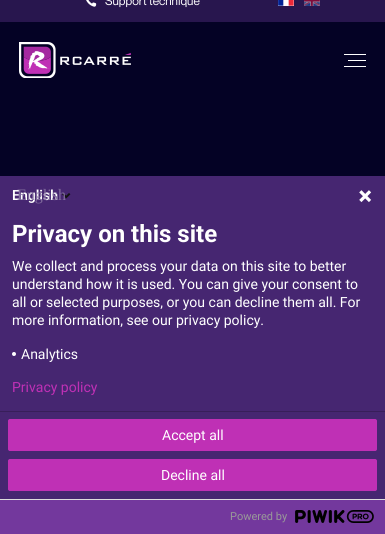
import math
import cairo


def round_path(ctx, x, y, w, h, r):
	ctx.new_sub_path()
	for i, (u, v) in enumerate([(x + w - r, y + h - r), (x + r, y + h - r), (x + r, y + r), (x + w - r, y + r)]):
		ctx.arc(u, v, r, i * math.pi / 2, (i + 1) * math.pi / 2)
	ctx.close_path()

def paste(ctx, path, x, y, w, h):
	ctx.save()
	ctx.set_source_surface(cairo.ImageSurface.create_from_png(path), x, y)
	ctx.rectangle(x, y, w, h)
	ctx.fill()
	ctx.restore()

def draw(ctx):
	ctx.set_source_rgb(0.016, 0.008, 0.145)
	ctx.paint()
	ctx.set_source_rgb(0.157, 0.086, 0.306)
	ctx.rectangle(0, 0, 385, 22)
	ctx.fill()
	paste(ctx, 'media/1.png', 86, 0, 11, 7)
	ctx.select_font_face('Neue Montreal')
	ctx.set_font_size(12)
	ctx.set_source_rgb(1, 1, 1)
	ctx.move_to(105, 5)
	ctx.show_text('Support technique')
	paste(ctx, 'media/2.png', 278, 0, 16, 6)
	paste(ctx, 'media/3.png', 304, 0, 16, 6)
	paste(ctx, 'media/4.png', 19, 42, 112, 36)
	ctx.rectangle(344, 54, 22, 1)
	ctx.rectangle(348, 60, 18, 1)
	ctx.rectangle(344, 66, 22, 1)
	ctx.fill()
	ctx.set_source_rgb(0.275, 0.149, 0.443)
	ctx.rectangle(0, 176, 385, 323)
	ctx.fill()
	ctx.select_font_face('Roboto SemiBold')
	ctx.set_font_size(14)
	ctx.set_source_rgb(1, 1, 1)
	ctx.move_to(12, 200)
	ctx.show_text('English')
	paste(ctx, 'media/5.png', 62, 193, 9, 6)
	ctx.select_font_face('Liberation Serif')
	ctx.set_font_size(16)
	ctx.set_source_rgb(0.506, 0.424, 0.616)
	ctx.move_to(17, 200)
	ctx.show_text('English')
	paste(ctx, 'media/6.png', 359, 190, 13, 13)
	ctx.select_font_face('Roboto', cairo.FONT_SLANT_NORMAL, cairo.FONT_WEIGHT_BOLD)
	ctx.set_font_size(24)
	ctx.set_source_rgb(1, 1, 1)
	ctx.move_to(12, 242)
	ctx.show_text('Privacy on this site')
	ctx.select_font_face('Roboto')
	ctx.set_font_size(14)
	for x, y, s in [
		(12, 271, 'We collect and process your data on this site to better'),
		(12, 289, 'understand how it is used. You can give your consent to'),
		(12, 307, 'all or selected purposes, or you can decline them all. For'),
		(12, 325, 'more information, see our privacy policy.'),
	]:
		ctx.move_to(x, y)
		ctx.show_text(s)
	ctx.new_path()
	ctx.arc(14, 354, 2, 0, 2 * math.pi)
	ctx.fill()
	ctx.move_to(21, 359)
	ctx.show_text('Analytics')
	ctx.set_source_rgb(0.22, 0.118, 0.353)
	ctx.rectangle(0, 411, 385, 1)
	ctx.fill()
	ctx.set_source_rgb(0.749, 0.188, 0.71)
	round_path(ctx, 8.5, 419.5, 368, 31, 1.5)
	ctx.fill_preserve()
	ctx.set_line_width(1)
	ctx.stroke()
	ctx.set_source_rgb(1, 1, 1)
	ctx.move_to(162, 440)
	ctx.show_text('Accept all')
	ctx.set_source_rgb(0.749, 0.188, 0.71)
	round_path(ctx, 8.5, 459.5, 368, 31, 1.5)
	ctx.fill_preserve()
	ctx.stroke()
	ctx.set_source_rgb(1, 1, 1)
	ctx.move_to(161, 480)
	ctx.show_text('Decline all')
	ctx.set_source_rgb(0.749, 0.188, 0.71)
	ctx.move_to(12, 392)
	ctx.show_text('Privacy policy')
	ctx.set_source_rgb(0.451, 0.22, 0.616)
	ctx.rectangle(0, 500, 385, 34)
	ctx.fill()
	ctx.set_source_rgb(0.867, 0.867, 0.867)
	ctx.rectangle(0, 499, 385, 1)
	ctx.fill()
	ctx.set_font_size(11)
	ctx.set_source_rgb(0.6, 0.6, 0.6)
	ctx.move_to(230, 520)
	ctx.show_text('Powered by')
	paste(ctx, 'media/7.png', 295, 510, 79, 13)


surface = cairo.ImageSurface(cairo.FORMAT_RGB24, 385, 534)
ctx = cairo.Context(surface)
options = cairo.FontOptions()
options.set_hint_metrics(cairo.HINT_METRICS_OFF)
options.set_hint_style(cairo.HINT_STYLE_NONE)
ctx.set_font_options(options)
ctx.set_miter_limit(4)
draw(ctx)
surface.write_to_png('image.png')
